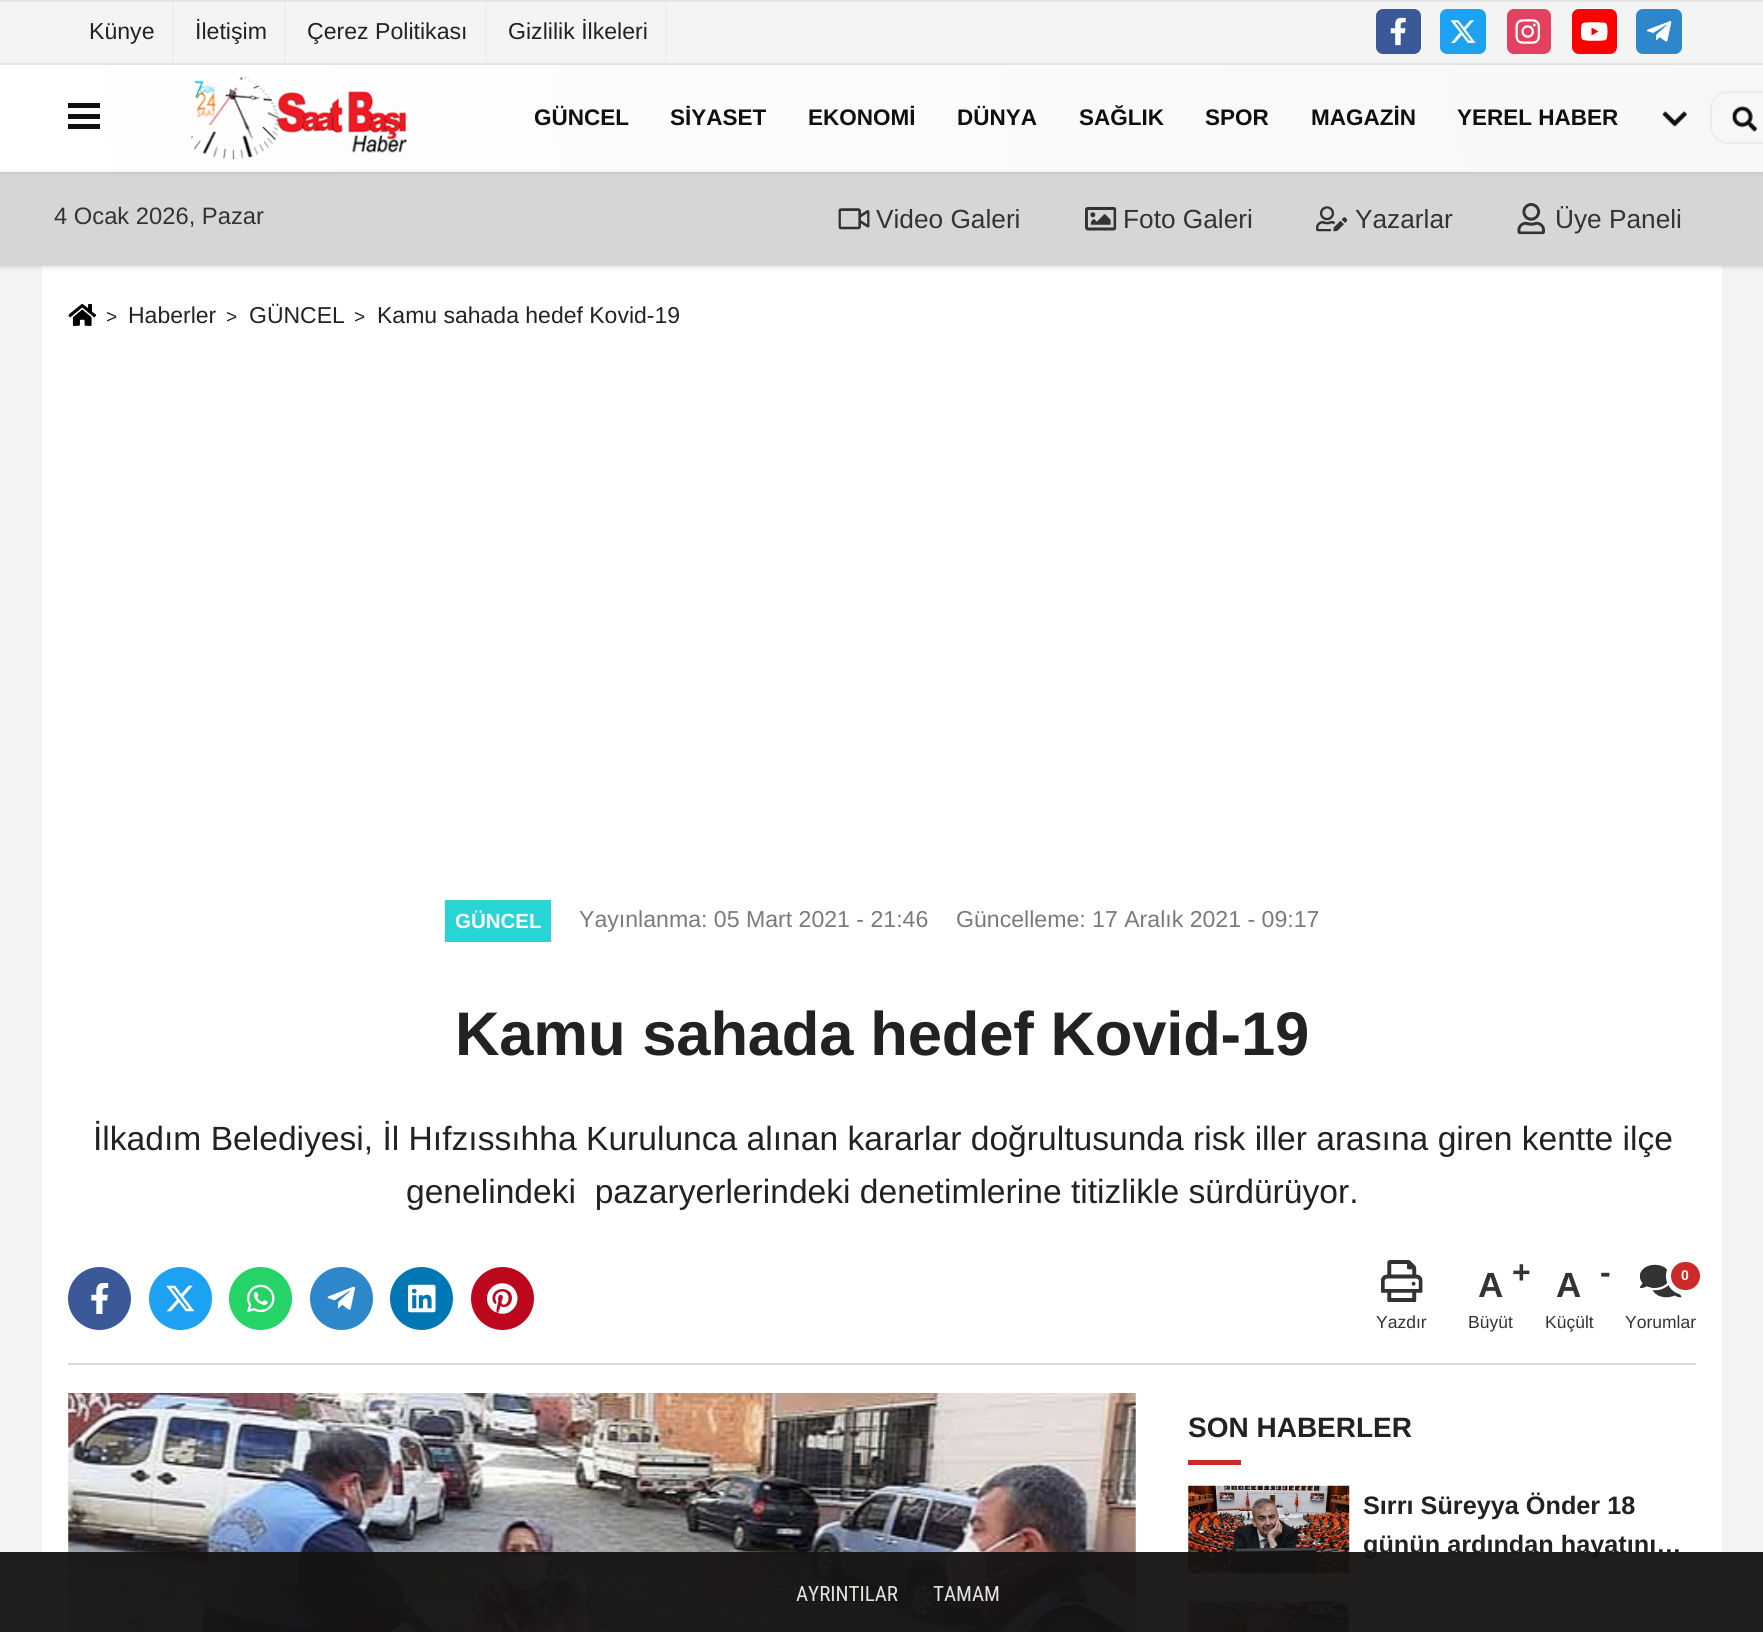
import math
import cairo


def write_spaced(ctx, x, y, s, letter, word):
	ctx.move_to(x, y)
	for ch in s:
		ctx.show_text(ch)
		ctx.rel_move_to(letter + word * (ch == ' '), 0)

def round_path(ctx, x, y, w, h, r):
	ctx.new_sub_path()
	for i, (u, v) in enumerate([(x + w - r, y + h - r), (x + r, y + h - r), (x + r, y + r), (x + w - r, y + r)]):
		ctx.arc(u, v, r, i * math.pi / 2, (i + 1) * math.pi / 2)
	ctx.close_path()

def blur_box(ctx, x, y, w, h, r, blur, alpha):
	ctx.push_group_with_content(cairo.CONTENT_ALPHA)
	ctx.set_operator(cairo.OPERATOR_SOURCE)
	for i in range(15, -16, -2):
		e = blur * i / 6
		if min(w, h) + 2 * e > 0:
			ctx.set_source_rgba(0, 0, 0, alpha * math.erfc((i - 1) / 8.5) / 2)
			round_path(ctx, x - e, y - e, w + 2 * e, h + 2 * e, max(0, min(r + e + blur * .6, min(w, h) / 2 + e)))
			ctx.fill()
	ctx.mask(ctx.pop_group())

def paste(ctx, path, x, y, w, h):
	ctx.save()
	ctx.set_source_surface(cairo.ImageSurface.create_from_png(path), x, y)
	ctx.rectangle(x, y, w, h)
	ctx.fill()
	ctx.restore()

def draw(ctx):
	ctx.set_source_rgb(0.957, 0.957, 0.957)
	ctx.paint()
	ctx.set_source_rgb(0.902, 0.902, 0.902)
	ctx.rectangle(0, 0, 1763, 2)
	ctx.fill()
	ctx.set_source_rgb(0.933, 0.933, 0.933)
	ctx.rectangle(172, 2, 2, 61)
	ctx.fill()
	ctx.select_font_face('Liberation Sans')
	ctx.set_font_size(23.1)
	ctx.set_source_rgb(0.133, 0.133, 0.133)
	ctx.move_to(89, 39)
	ctx.show_text('Künye')
	ctx.set_source_rgb(0.933, 0.933, 0.933)
	ctx.rectangle(284, 2, 2, 61)
	ctx.fill()
	ctx.set_source_rgb(0.133, 0.133, 0.133)
	ctx.move_to(195, 39)
	ctx.show_text('İletişim')
	ctx.set_source_rgb(0.933, 0.933, 0.933)
	ctx.rectangle(485, 2, 2, 61)
	ctx.fill()
	ctx.set_source_rgb(0.133, 0.133, 0.133)
	ctx.move_to(307, 39)
	ctx.show_text('Çerez Politikası')
	ctx.set_source_rgb(0.933, 0.933, 0.933)
	ctx.rectangle(665, 2, 2, 61)
	ctx.fill()
	ctx.set_source_rgb(0.133, 0.133, 0.133)
	ctx.move_to(508, 39)
	ctx.show_text('Gizlilik İlkeleri')
	ctx.set_source_rgb(0.231, 0.349, 0.596)
	round_path(ctx, 1376, 9, 45, 45, 7)
	ctx.fill()
	paste(ctx, 'media/1.png', 1390, 17, 16, 29)
	ctx.set_source_rgb(0.114, 0.631, 0.949)
	round_path(ctx, 1440, 9, 46, 45, 7)
	ctx.fill()
	paste(ctx, 'media/2.png', 1450, 20, 26, 23)
	ctx.set_source_rgb(0.894, 0.251, 0.373)
	round_path(ctx, 1507, 9, 44, 45, 7)
	ctx.fill()
	paste(ctx, 'media/3.png', 1515, 19, 25, 25)
	ctx.set_source_rgb(1, 0, 0)
	round_path(ctx, 1572, 9, 45, 45, 7)
	ctx.fill()
	paste(ctx, 'media/4.png', 1580, 22, 28, 19)
	ctx.set_source_rgb(0.18, 0.529, 0.792)
	round_path(ctx, 1636, 9, 46, 45, 7)
	ctx.fill()
	paste(ctx, 'media/5.png', 1646, 21, 26, 21)
	ctx.set_source_rgb(0.902, 0.902, 0.902)
	ctx.rectangle(0, 63, 1763, 2)
	ctx.fill()
	ctx.set_source_rgb(1, 1, 1)
	ctx.rectangle(42, 266, 1680, 1366)
	ctx.fill()
	ctx.set_source_rgb(0, 0, 0)
	blur_box(ctx, 0, 173, 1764, 95, 0, 2, 0.1)
	ctx.set_source_rgb(0.839, 0.839, 0.839)
	ctx.rectangle(0, 172, 1763, 94)
	ctx.fill()
	ctx.set_source_rgb(0, 0, 0)
	blur_box(ctx, 0, 67, 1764, 106, 0, 2, 0.1)
	gradient = cairo.RadialGradient(1764, 65, 0, 1764, 65, 1767)
	gradient.add_color_stop_rgba(0, 0.969, 0.969, 0.969, 1)
	gradient.add_color_stop_rgba(1, 1, 1, 1, 1)
	ctx.set_source(gradient)
	ctx.rectangle(0, 65, 1763, 105)
	ctx.fill()
	ctx.set_source_rgb(0.961, 0.961, 0.961)
	ctx.rectangle(0, 170, 1763, 2)
	ctx.fill()
	ctx.set_source_rgb(0.059, 0.059, 0.059)
	ctx.rectangle(68, 103, 32, 5)
	ctx.rectangle(68, 114, 32, 5)
	ctx.rectangle(68, 124, 32, 5)
	ctx.fill()
	paste(ctx, 'media/6.png', 191, 77, 216, 83)
	ctx.select_font_face('Liberation Sans', cairo.FONT_SLANT_NORMAL, cairo.FONT_WEIGHT_BOLD)
	ctx.set_font_size(22.5)
	for x, y, s in [
		(534, 125, 'GÜNCEL'),
		(670, 125, 'SİYASET'),
		(808, 125, 'EKONOMİ'),
		(957, 125, 'DÜNYA'),
		(1079, 125, 'SAĞLIK'),
		(1205, 125, 'SPOR'),
		(1311, 125, 'MAGAZİN'),
		(1457, 125, 'YEREL HABER'),
	]:
		ctx.move_to(x, y)
		ctx.show_text(s)
	paste(ctx, 'media/7.png', 1662, 111, 25, 16)
	round_path(ctx, 1711, 92, 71, 51, 17)
	ctx.set_source_rgb(0.925, 0.925, 0.925)
	ctx.stroke()
	paste(ctx, 'media/8.png', 1732, 106, 25, 26)
	ctx.select_font_face('Liberation Sans')
	ctx.set_font_size(23.75)
	ctx.set_source_rgb(0.2, 0.2, 0.2)
	ctx.move_to(54, 224)
	ctx.show_text('4 Ocak 2026, Pazar')
	paste(ctx, 'media/9.png', 838, 208, 32, 22)
	ctx.set_font_size(26.25)
	ctx.move_to(876, 228)
	ctx.show_text('Video Galeri')
	paste(ctx, 'media/10.png', 1085, 207, 32, 24)
	ctx.move_to(1123, 228)
	ctx.show_text('Foto Galeri')
	paste(ctx, 'media/11.png', 1316, 206, 32, 26)
	ctx.move_to(1355, 228)
	ctx.show_text('Yazarlar')
	paste(ctx, 'media/12.png', 1517, 203, 28, 32)
	ctx.move_to(1555, 228)
	ctx.show_text('Üye Paneli')
	paste(ctx, 'media/13.png', 68, 304, 28, 22)
	ctx.set_font_size(19)
	ctx.set_source_rgb(0.133, 0.133, 0.133)
	ctx.move_to(106, 323)
	ctx.show_text('>')
	ctx.set_font_size(23)
	ctx.move_to(128, 323)
	ctx.show_text('Haberler')
	ctx.set_font_size(19)
	ctx.move_to(226, 323)
	ctx.show_text('>')
	ctx.set_font_size(23)
	ctx.move_to(249, 323)
	ctx.show_text('GÜNCEL')
	ctx.set_font_size(19)
	ctx.move_to(354, 323)
	ctx.show_text('>')
	ctx.set_font_size(23)
	ctx.move_to(377, 323)
	ctx.show_text('Kamu sahada hedef Kovid-19')
	ctx.set_source_rgb(0.157, 0.831, 0.831)
	ctx.rectangle(445, 900, 106, 42)
	ctx.fill()
	ctx.select_font_face('Liberation Sans', cairo.FONT_SLANT_NORMAL, cairo.FONT_WEIGHT_BOLD)
	ctx.set_font_size(20.5)
	ctx.set_source_rgb(1, 1, 1)
	ctx.move_to(455, 928)
	ctx.show_text('GÜNCEL')
	ctx.select_font_face('Liberation Sans')
	ctx.set_font_size(23.1)
	ctx.set_source_rgb(0.478, 0.478, 0.478)
	ctx.move_to(579, 927)
	ctx.show_text('Yayınlanma: 05 Mart 2021 - 21:46')
	ctx.move_to(956, 927)
	ctx.show_text('Güncelleme: 17 Aralık 2021 - 09:17')
	ctx.select_font_face('Liberation Sans', cairo.FONT_SLANT_NORMAL, cairo.FONT_WEIGHT_BOLD)
	ctx.set_font_size(61.6)
	ctx.set_source_rgb(0.133, 0.133, 0.133)
	write_spaced(ctx, 455, 1055, 'Kamu sahada hedef Kovid-19', -0.2, 0)
	ctx.select_font_face('Liberation Sans')
	ctx.set_font_size(33.6)
	ctx.move_to(93, 1150)
	ctx.show_text('İlkadım Belediyesi, İl Hıfzıssıhha Kurulunca alınan kararlar doğrultusunda risk iller arasına giren kentte ilçe')
	ctx.move_to(406, 1203)
	ctx.show_text('genelindeki  pazaryerlerindeki denetimlerine titizlikle sürdürüyor.')
	ctx.set_source_rgb(0.231, 0.349, 0.596)
	ctx.new_path()
	ctx.arc(99.5, 1298.5, 31.5, 0, 2 * math.pi)
	ctx.fill()
	paste(ctx, 'media/14.png', 91, 1283, 18, 31)
	ctx.set_source_rgb(0.114, 0.631, 0.949)
	ctx.arc(180.5, 1298.5, 31.5, 0, 2 * math.pi)
	ctx.fill()
	paste(ctx, 'media/15.png', 166, 1285, 29, 27)
	ctx.set_source_rgb(0.145, 0.827, 0.4)
	ctx.arc(260.5, 1298.5, 31.5, 0, 2 * math.pi)
	ctx.fill()
	paste(ctx, 'media/16.png', 247, 1284, 28, 29)
	ctx.set_source_rgb(0.18, 0.529, 0.792)
	ctx.arc(341.5, 1298.5, 31.5, 0, 2 * math.pi)
	ctx.fill()
	paste(ctx, 'media/17.png', 327, 1286, 28, 24)
	ctx.set_source_rgb(0, 0.467, 0.71)
	ctx.arc(421.5, 1298.5, 31.5, 0, 2 * math.pi)
	ctx.fill()
	paste(ctx, 'media/18.png', 407, 1284, 29, 29)
	ctx.set_source_rgb(0.741, 0.031, 0.11)
	ctx.arc(502.5, 1298.5, 31.5, 0, 2 * math.pi)
	ctx.fill()
	paste(ctx, 'media/19.png', 487, 1283, 31, 31)
	paste(ctx, 'media/20.png', 1381, 1260, 42, 42)
	ctx.set_font_size(17.5)
	ctx.set_source_rgb(0.2, 0.2, 0.2)
	ctx.move_to(1376, 1328)
	ctx.show_text('Yazdır')
	ctx.select_font_face('Liberation Sans', cairo.FONT_SLANT_NORMAL, cairo.FONT_WEIGHT_BOLD)
	ctx.set_font_size(35)
	ctx.move_to(1478, 1297)
	ctx.show_text('A')
	ctx.set_font_size(32)
	ctx.move_to(1512, 1283)
	ctx.show_text('+')
	ctx.select_font_face('Liberation Sans')
	ctx.set_font_size(17.5)
	ctx.move_to(1468, 1328)
	ctx.show_text('Büyüt')
	ctx.select_font_face('Liberation Sans', cairo.FONT_SLANT_NORMAL, cairo.FONT_WEIGHT_BOLD)
	ctx.set_font_size(35)
	ctx.move_to(1556, 1297)
	ctx.show_text('A')
	ctx.set_font_size(32)
	ctx.move_to(1600, 1283)
	ctx.show_text('-')
	ctx.select_font_face('Liberation Sans')
	ctx.set_font_size(17.5)
	ctx.move_to(1545, 1328)
	ctx.show_text('Küçült')
	paste(ctx, 'media/21.png', 1640, 1264, 42, 34)
	ctx.set_source_rgb(0.8, 0.161, 0.169)
	round_path(ctx, 1668.5, 1259.5, 34, 33, 16.5)
	ctx.fill_preserve()
	ctx.set_source_rgb(1, 1, 1)
	ctx.set_line_width(5)
	ctx.stroke()
	ctx.select_font_face('Liberation Sans', cairo.FONT_SLANT_NORMAL, cairo.FONT_WEIGHT_BOLD)
	ctx.set_font_size(14)
	ctx.move_to(1681, 1280)
	ctx.show_text('0')
	ctx.select_font_face('Liberation Sans')
	ctx.set_font_size(17.5)
	ctx.set_source_rgb(0.2, 0.2, 0.2)
	ctx.move_to(1625, 1328)
	ctx.show_text('Yorumlar')
	ctx.set_source_rgb(0.851, 0.851, 0.851)
	ctx.rectangle(68, 1363, 1628, 2)
	ctx.fill()
	paste(ctx, 'media/22.png', 68, 1393, 1068, 239)
	ctx.select_font_face('Liberation Sans', cairo.FONT_SLANT_NORMAL, cairo.FONT_WEIGHT_BOLD)
	ctx.set_font_size(28)
	ctx.set_source_rgb(0.133, 0.133, 0.133)
	ctx.move_to(1188, 1437)
	ctx.show_text('SON HABERLER')
	ctx.set_source_rgb(0.8, 0.161, 0.169)
	ctx.rectangle(1188, 1460, 53, 5)
	ctx.fill()
	paste(ctx, 'media/23.png', 1188, 1485, 162, 89)
	ctx.set_font_size(25.25)
	ctx.set_source_rgb(0.133, 0.133, 0.133)
	ctx.move_to(1363, 1514)
	ctx.show_text('Sırrı Süreyya Önder 18')
	ctx.move_to(1363, 1553)
	ctx.show_text('günün ardından hayatını…')
	paste(ctx, 'media/24.png', 1188, 1601, 162, 31)
	ctx.set_source_rgba(0.09, 0.078, 0.078, 0.95)
	ctx.rectangle(0, 1552, 1763, 80)
	ctx.fill()
	ctx.select_font_face('Roboto Condensed')
	ctx.set_font_size(21)
	ctx.set_source_rgb(0.89, 0.89, 0.89)
	ctx.move_to(796, 1601)
	ctx.show_text('AYRINTILAR')
	ctx.move_to(933, 1601)
	ctx.show_text('TAMAM')


surface = cairo.ImageSurface(cairo.FORMAT_RGB24, 1763, 1632)
ctx = cairo.Context(surface)
options = cairo.FontOptions()
options.set_hint_metrics(cairo.HINT_METRICS_OFF)
options.set_hint_style(cairo.HINT_STYLE_NONE)
ctx.set_font_options(options)
ctx.set_miter_limit(4)
draw(ctx)
surface.write_to_png('image.png')
